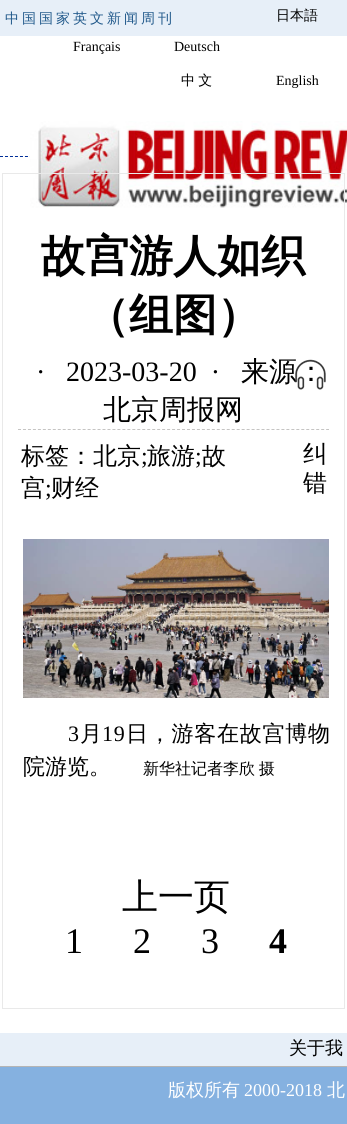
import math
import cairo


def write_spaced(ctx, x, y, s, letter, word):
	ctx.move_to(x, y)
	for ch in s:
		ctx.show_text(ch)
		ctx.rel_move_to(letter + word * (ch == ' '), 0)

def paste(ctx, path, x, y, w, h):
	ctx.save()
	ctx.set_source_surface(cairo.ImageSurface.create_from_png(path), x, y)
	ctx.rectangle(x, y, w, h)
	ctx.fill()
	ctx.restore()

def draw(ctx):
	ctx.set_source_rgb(1, 1, 1)
	ctx.paint()
	ctx.set_source_rgb(0.906, 0.937, 0.969)
	ctx.rectangle(0, 0, 347, 36)
	ctx.fill()
	ctx.select_font_face('WenQuanYi Zen Hei Medium')
	ctx.set_font_size(14)
	ctx.set_source_rgb(0.129, 0.349, 0.545)
	write_spaced(ctx, 5, 23, '中国国家英文新闻周刊', 3, 0)
	ctx.set_source_rgb(0, 0, 0)
	ctx.move_to(276, 20)
	ctx.show_text('日本語')
	ctx.select_font_face('Liberation Serif')
	ctx.move_to(73, 51)
	ctx.show_text('Français')
	ctx.move_to(174, 51)
	ctx.show_text('Deutsch')
	ctx.select_font_face('WenQuanYi Zen Hei Medium')
	write_spaced(ctx, 181, 85, '中 文', 0, -1)
	ctx.select_font_face('Liberation Serif')
	ctx.move_to(276, 85)
	ctx.show_text('English')
	ctx.new_path()
	ctx.move_to(0, 156.5)
	ctx.line_to(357, 156.5)
	ctx.set_source_rgb(0, 0.18, 0.596)
	ctx.set_line_width(1)
	ctx.set_dash([3, 1.99])
	ctx.stroke()
	paste(ctx, 'media/1.png', 30, 121, 317, 87)
	ctx.rectangle(2.5, 173.5, 342, 835)
	ctx.set_source_rgb(0.914, 0.914, 0.914)
	ctx.set_dash([])
	ctx.stroke()
	ctx.select_font_face('WenQuanYi Zen Hei', cairo.FONT_SLANT_NORMAL, cairo.FONT_WEIGHT_BOLD)
	ctx.set_font_size(44)
	ctx.set_source_rgb(0, 0, 0)
	ctx.move_to(41, 271)
	ctx.show_text('故宫游人如织')
	ctx.move_to(85, 330)
	ctx.show_text('（组图）')
	ctx.select_font_face('WenQuanYi Zen Hei Medium')
	ctx.set_font_size(28)
	ctx.move_to(241, 381)
	ctx.show_text('来源：')
	paste(ctx, 'media/2.png', 295, 359, 31, 31)
	ctx.new_path()
	ctx.move_to(18, 429.5)
	ctx.line_to(329, 429.5)
	ctx.set_source_rgb(0.773, 0.769, 0.765)
	ctx.set_dash([3, 1.97])
	ctx.stroke()
	ctx.select_font_face('Liberation Serif')
	ctx.set_source_rgb(0, 0, 0)
	ctx.move_to(36, 381)
	ctx.show_text('·')
	ctx.move_to(66, 381)
	ctx.show_text('2023-03-20  ·')
	ctx.select_font_face('WenQuanYi Zen Hei Medium')
	ctx.move_to(103, 419)
	ctx.show_text('北京周报网')
	ctx.set_font_size(24)
	ctx.move_to(21, 464)
	ctx.show_text('标签：北京')
	ctx.select_font_face('Liberation Serif')
	ctx.move_to(141, 464)
	ctx.show_text(';')
	ctx.select_font_face('WenQuanYi Zen Hei Medium')
	ctx.move_to(147, 464)
	ctx.show_text('旅游')
	ctx.select_font_face('Liberation Serif')
	ctx.move_to(195, 464)
	ctx.show_text(';')
	ctx.select_font_face('WenQuanYi Zen Hei Medium')
	ctx.move_to(202, 464)
	ctx.show_text('故')
	ctx.move_to(21, 496)
	ctx.show_text('宫')
	ctx.select_font_face('Liberation Serif')
	ctx.move_to(45, 496)
	ctx.show_text(';')
	ctx.select_font_face('WenQuanYi Zen Hei Medium')
	for x, y, s in [
		(51, 496, '财经'),
		(303, 462, '纠'),
		(303, 491, '错'),
	]:
		ctx.move_to(x, y)
		ctx.show_text(s)
	paste(ctx, 'media/3.png', 23, 539, 306, 159)
	ctx.select_font_face('Liberation Serif')
	ctx.set_font_size(22)
	write_spaced(ctx, 68, 741, '3', 0.75, 0)
	ctx.select_font_face('WenQuanYi Zen Hei Medium')
	write_spaced(ctx, 80, 741, '月', 0.75, 0)
	ctx.select_font_face('Liberation Serif')
	write_spaced(ctx, 102, 741, '19', 0.75, 0)
	ctx.select_font_face('WenQuanYi Zen Hei Medium')
	write_spaced(ctx, 126, 741, '日，游客在故宫博物', 0.75, 0)
	ctx.move_to(23, 774)
	ctx.show_text('院游览。')
	ctx.set_font_size(16)
	write_spaced(ctx, 143, 774, '新华社记者李欣 摄', 0, -1)
	ctx.set_font_size(36)
	ctx.move_to(122, 909)
	ctx.show_text('上一页')
	ctx.select_font_face('Liberation Serif')
	for x, y, s in [
		(65, 953, '1'),
		(133, 953, '2'),
		(201, 953, '3'),
	]:
		ctx.move_to(x, y)
		ctx.show_text(s)
	ctx.select_font_face('Liberation Serif', cairo.FONT_SLANT_NORMAL, cairo.FONT_WEIGHT_BOLD)
	ctx.move_to(269, 953)
	ctx.show_text('4')
	ctx.set_source_rgb(0.906, 0.937, 0.969)
	ctx.rectangle(0, 1033, 347, 33)
	ctx.fill()
	ctx.select_font_face('WenQuanYi Zen Hei Medium')
	ctx.set_font_size(18)
	ctx.set_source_rgb(0, 0, 0)
	ctx.move_to(289, 1054)
	ctx.show_text('关于我')
	ctx.set_source_rgb(0.522, 0.694, 0.878)
	ctx.rectangle(0, 1067, 347, 57)
	ctx.fill()
	ctx.set_source_rgb(0.71, 0.71, 0.71)
	ctx.rectangle(0, 1066, 347, 1)
	ctx.fill()
	ctx.set_source_rgb(1, 1, 1)
	ctx.move_to(168, 1096)
	ctx.show_text('版权所有')
	ctx.select_font_face('Liberation Serif')
	ctx.move_to(244, 1096)
	ctx.show_text('2000-2018')
	ctx.select_font_face('WenQuanYi Zen Hei Medium')
	ctx.move_to(327, 1096)
	ctx.show_text('北')


surface = cairo.ImageSurface(cairo.FORMAT_RGB24, 347, 1124)
ctx = cairo.Context(surface)
options = cairo.FontOptions()
options.set_hint_metrics(cairo.HINT_METRICS_OFF)
options.set_hint_style(cairo.HINT_STYLE_NONE)
ctx.set_font_options(options)
ctx.set_miter_limit(4)
draw(ctx)
surface.write_to_png('image.png')
